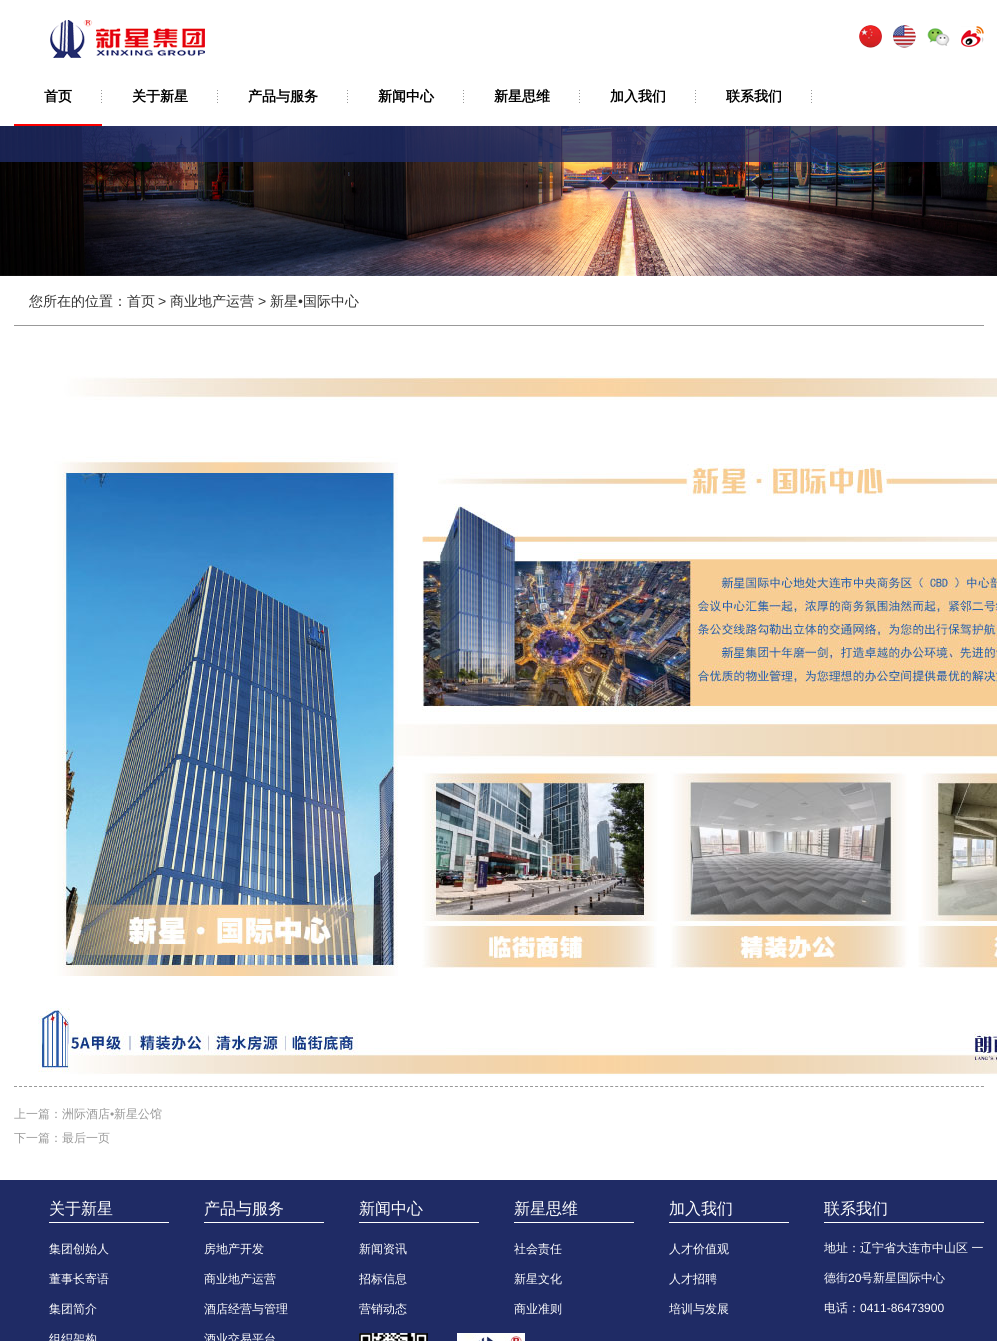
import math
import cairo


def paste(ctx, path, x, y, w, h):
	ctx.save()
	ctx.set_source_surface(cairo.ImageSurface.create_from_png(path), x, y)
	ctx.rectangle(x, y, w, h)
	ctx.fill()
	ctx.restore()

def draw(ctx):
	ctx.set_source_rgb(1, 1, 1)
	ctx.paint()
	paste(ctx, 'media/1.png', 859, 25, 23, 23)
	paste(ctx, 'media/2.png', 893, 25, 23, 23)
	paste(ctx, 'media/3.png', 927, 28, 23, 18)
	paste(ctx, 'media/4.png', 961, 26, 23, 21)
	paste(ctx, 'media/5.png', 50, 20, 155, 38)
	paste(ctx, 'media/6.png', 101, 90, 1, 13)
	ctx.set_source_rgb(1, 0, 0)
	ctx.rectangle(14, 124, 88, 2)
	ctx.fill()
	ctx.select_font_face('WenQuanYi Zen Hei', cairo.FONT_SLANT_NORMAL, cairo.FONT_WEIGHT_BOLD)
	ctx.set_font_size(14)
	ctx.set_source_rgb(0, 0, 0)
	ctx.move_to(44, 101)
	ctx.show_text('首页')
	paste(ctx, 'media/6.png', 217, 90, 1, 13)
	ctx.move_to(132, 101)
	ctx.show_text('关于新星')
	paste(ctx, 'media/6.png', 347, 90, 1, 13)
	ctx.move_to(248, 101)
	ctx.show_text('产品与服务')
	paste(ctx, 'media/6.png', 463, 90, 1, 13)
	ctx.move_to(378, 101)
	ctx.show_text('新闻中心')
	paste(ctx, 'media/6.png', 579, 90, 1, 13)
	ctx.move_to(494, 101)
	ctx.show_text('新星思维')
	paste(ctx, 'media/6.png', 695, 90, 1, 13)
	ctx.move_to(610, 101)
	ctx.show_text('加入我们')
	paste(ctx, 'media/6.png', 811, 90, 1, 13)
	ctx.move_to(726, 101)
	ctx.show_text('联系我们')
	paste(ctx, 'media/7.png', 0, 126, 997, 150)
	ctx.set_source_rgba(0.122, 0.169, 0.396, 0.8)
	ctx.rectangle(0, 126, 997, 36)
	ctx.fill()
	ctx.set_source_rgb(0.6, 0.6, 0.6)
	ctx.rectangle(14, 325, 970, 1)
	ctx.fill()
	ctx.select_font_face('WenQuanYi Zen Hei Medium')
	ctx.set_source_rgb(0.2, 0.2, 0.2)
	ctx.move_to(29, 306)
	ctx.show_text('您所在的位置：首页')
	ctx.select_font_face('Liberation Sans')
	ctx.move_to(158, 306)
	ctx.show_text('>')
	ctx.select_font_face('WenQuanYi Zen Hei Medium')
	ctx.move_to(170, 306)
	ctx.show_text('商业地产运营')
	ctx.select_font_face('Liberation Sans')
	ctx.move_to(258, 306)
	ctx.show_text('>')
	ctx.select_font_face('WenQuanYi Zen Hei Medium')
	ctx.move_to(270, 306)
	ctx.show_text('新星')
	ctx.select_font_face('Liberation Sans')
	ctx.move_to(298, 306)
	ctx.show_text('•')
	ctx.select_font_face('WenQuanYi Zen Hei Medium')
	ctx.move_to(303, 306)
	ctx.show_text('国际中心')
	paste(ctx, 'media/8.png', 38, 376, 959, 700)
	ctx.new_path()
	ctx.move_to(14, 1086.5)
	ctx.line_to(984, 1086.5)
	ctx.set_source_rgb(0.6, 0.6, 0.6)
	ctx.set_line_width(1)
	ctx.set_dash([3, 2.01])
	ctx.stroke()
	ctx.set_font_size(12)
	ctx.move_to(14, 1118)
	ctx.show_text('上一篇：洲际酒店')
	ctx.select_font_face('Liberation Sans')
	ctx.move_to(110, 1118)
	ctx.show_text('•')
	ctx.select_font_face('WenQuanYi Zen Hei Medium')
	ctx.move_to(114, 1118)
	ctx.show_text('新星公馆')
	ctx.move_to(14, 1142)
	ctx.show_text('下一篇：最后一页')
	ctx.set_source_rgb(0.122, 0.169, 0.396)
	ctx.rectangle(0, 1180, 997, 161)
	ctx.fill()
	ctx.set_source_rgb(1, 1, 1)
	ctx.rectangle(49, 1222, 120, 1)
	ctx.fill()
	ctx.set_font_size(16)
	ctx.move_to(49, 1214)
	ctx.show_text('关于新星')
	ctx.set_font_size(12)
	for x, y, s in [
		(49, 1253, '集团创始人'),
		(49, 1283, '董事长寄语'),
		(49, 1313, '集团简介'),
		(49, 1343, '组织架构'),
	]:
		ctx.move_to(x, y)
		ctx.show_text(s)
	ctx.rectangle(204, 1222, 120, 1)
	ctx.fill()
	ctx.set_font_size(16)
	ctx.move_to(204, 1214)
	ctx.show_text('产品与服务')
	ctx.set_font_size(12)
	for x, y, s in [
		(204, 1253, '房地产开发'),
		(204, 1283, '商业地产运营'),
		(204, 1313, '酒店经营与管理'),
		(204, 1343, '酒业交易平台'),
	]:
		ctx.move_to(x, y)
		ctx.show_text(s)
	ctx.rectangle(359, 1222, 120, 1)
	ctx.fill()
	ctx.set_font_size(16)
	ctx.move_to(359, 1214)
	ctx.show_text('新闻中心')
	ctx.set_font_size(12)
	for x, y, s in [
		(359, 1253, '新闻资讯'),
		(359, 1283, '招标信息'),
		(359, 1313, '营销动态'),
	]:
		ctx.move_to(x, y)
		ctx.show_text(s)
	ctx.rectangle(514, 1222, 120, 1)
	ctx.fill()
	ctx.set_font_size(16)
	ctx.move_to(514, 1214)
	ctx.show_text('新星思维')
	ctx.set_font_size(12)
	for x, y, s in [
		(514, 1253, '社会责任'),
		(514, 1283, '新星文化'),
		(514, 1313, '商业准则'),
	]:
		ctx.move_to(x, y)
		ctx.show_text(s)
	ctx.rectangle(669, 1222, 120, 1)
	ctx.fill()
	ctx.set_font_size(16)
	ctx.move_to(669, 1214)
	ctx.show_text('加入我们')
	ctx.set_font_size(12)
	for x, y, s in [
		(669, 1253, '人才价值观'),
		(669, 1283, '人才招聘'),
		(669, 1313, '培训与发展'),
	]:
		ctx.move_to(x, y)
		ctx.show_text(s)
	ctx.rectangle(824, 1222, 160, 1)
	ctx.fill()
	ctx.set_font_size(16)
	ctx.move_to(824, 1214)
	ctx.show_text('联系我们')
	ctx.set_font_size(12)
	ctx.move_to(824, 1252)
	ctx.show_text('地址：辽宁省大连市中山区 一')
	ctx.move_to(824, 1282)
	ctx.show_text('德街')
	ctx.select_font_face('Liberation Sans')
	ctx.move_to(848, 1282)
	ctx.show_text('20')
	ctx.select_font_face('WenQuanYi Zen Hei Medium')
	ctx.move_to(861, 1282)
	ctx.show_text('号新星国际中心')
	ctx.move_to(824, 1312)
	ctx.show_text('电话：')
	ctx.select_font_face('Liberation Sans')
	ctx.move_to(860, 1312)
	ctx.show_text('0411-86473900')
	paste(ctx, 'media/9.png', 359, 1333, 166, 8)


surface = cairo.ImageSurface(cairo.FORMAT_RGB24, 997, 1341)
ctx = cairo.Context(surface)
options = cairo.FontOptions()
options.set_hint_metrics(cairo.HINT_METRICS_OFF)
options.set_hint_style(cairo.HINT_STYLE_NONE)
ctx.set_font_options(options)
ctx.set_miter_limit(4)
draw(ctx)
surface.write_to_png('image.png')
